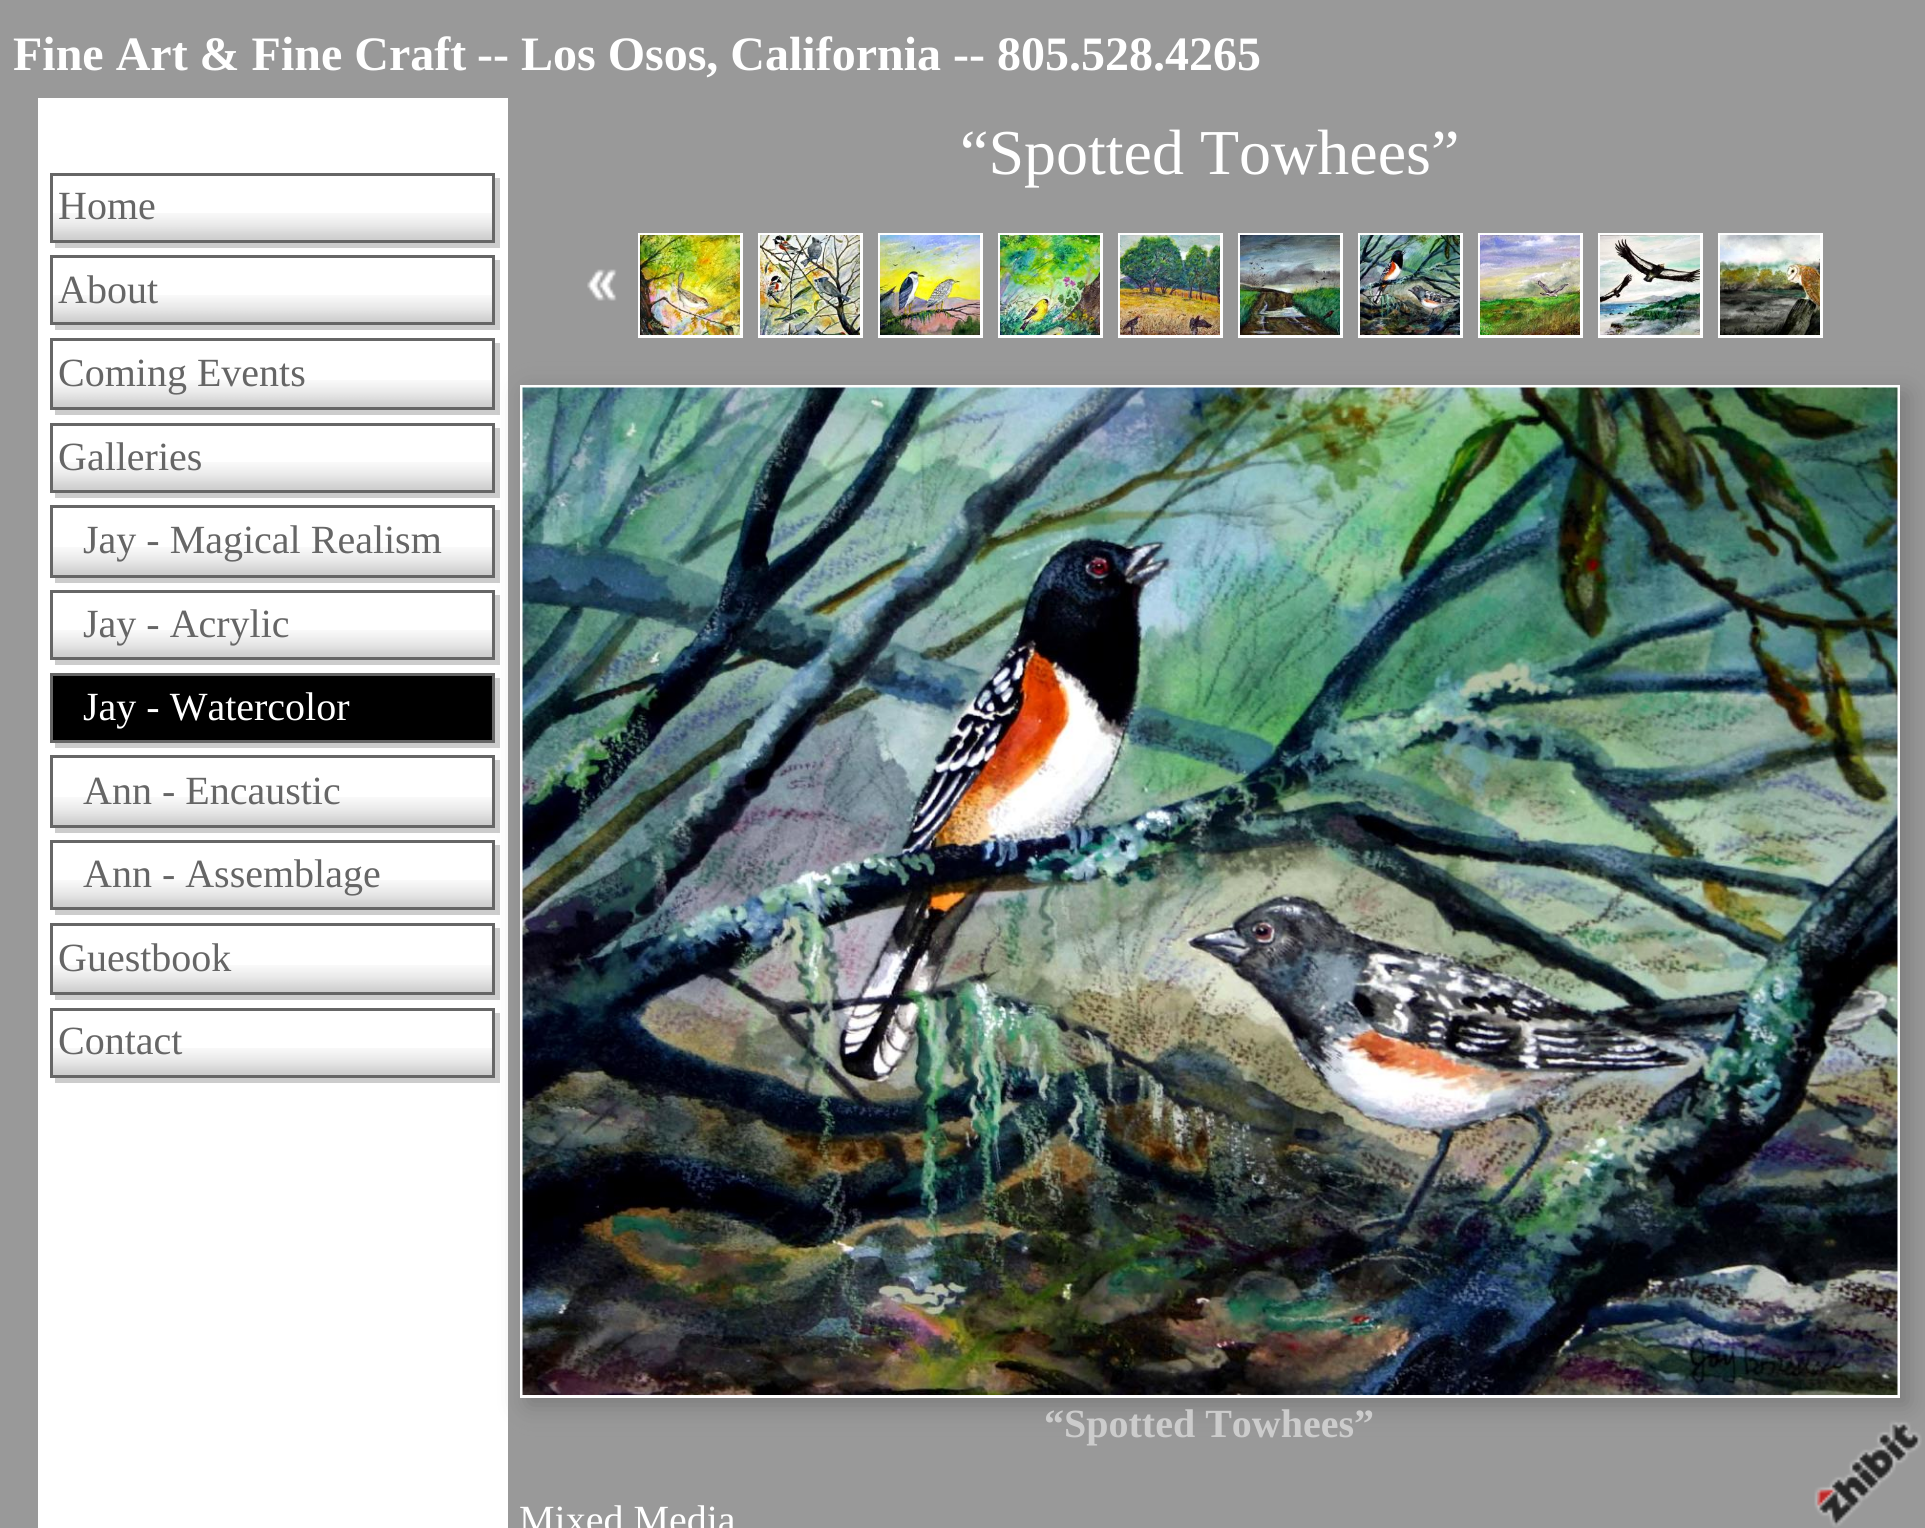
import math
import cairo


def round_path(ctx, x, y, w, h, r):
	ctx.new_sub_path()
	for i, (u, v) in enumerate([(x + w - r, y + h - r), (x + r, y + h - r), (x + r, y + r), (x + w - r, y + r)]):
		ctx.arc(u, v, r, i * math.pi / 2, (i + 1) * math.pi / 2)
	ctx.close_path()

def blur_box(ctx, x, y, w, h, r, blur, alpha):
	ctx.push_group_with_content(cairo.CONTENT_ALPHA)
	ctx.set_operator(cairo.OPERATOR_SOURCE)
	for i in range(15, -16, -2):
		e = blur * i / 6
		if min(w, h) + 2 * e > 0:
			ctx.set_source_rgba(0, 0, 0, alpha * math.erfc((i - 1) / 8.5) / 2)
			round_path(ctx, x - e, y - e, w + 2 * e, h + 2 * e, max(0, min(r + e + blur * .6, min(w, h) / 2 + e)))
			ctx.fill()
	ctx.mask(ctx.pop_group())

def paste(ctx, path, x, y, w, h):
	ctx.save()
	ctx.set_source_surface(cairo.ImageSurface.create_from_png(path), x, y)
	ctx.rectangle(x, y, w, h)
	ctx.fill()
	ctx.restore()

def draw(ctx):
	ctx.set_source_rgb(0.6, 0.6, 0.6)
	ctx.paint()
	ctx.select_font_face('Liberation Serif', cairo.FONT_SLANT_NORMAL, cairo.FONT_WEIGHT_BOLD)
	ctx.set_font_size(48)
	ctx.set_source_rgb(1, 1, 1)
	ctx.move_to(13, 70)
	ctx.show_text('Fine Art & Fine Craft')
	ctx.move_to(477, 70)
	ctx.show_text('-- Los Osos, California -- 805.528.4265')
	ctx.rectangle(38, 98, 470, 1430)
	ctx.fill()
	ctx.set_source_rgb(0.8, 0.8, 0.8)
	ctx.new_path()
	ctx.move_to(55, 242)
	ctx.line_to(55, 248)
	ctx.line_to(500, 248)
	ctx.line_to(500, 178)
	ctx.line_to(495, 178)
	ctx.line_to(495, 242)
	ctx.close_path()
	ctx.fill()
	paste(ctx, 'media/1.png', 53, 213, 439, 27)
	ctx.rectangle(51.5, 174.5, 442, 67)
	ctx.set_source_rgb(0.4, 0.4, 0.4)
	ctx.set_line_width(3)
	ctx.stroke()
	ctx.select_font_face('Liberation Serif')
	ctx.set_font_size(40)
	ctx.move_to(58, 219)
	ctx.show_text('Home')
	ctx.set_source_rgb(0.8, 0.8, 0.8)
	ctx.new_path()
	ctx.move_to(55, 325)
	ctx.line_to(55, 330)
	ctx.line_to(500, 330)
	ctx.line_to(500, 260)
	ctx.line_to(495, 260)
	ctx.line_to(495, 325)
	ctx.close_path()
	ctx.fill()
	paste(ctx, 'media/2.png', 53, 295, 439, 27)
	ctx.rectangle(51.5, 256.5, 442, 67)
	ctx.set_source_rgb(0.4, 0.4, 0.4)
	ctx.stroke()
	ctx.move_to(58, 303)
	ctx.show_text('About')
	ctx.set_source_rgb(0.8, 0.8, 0.8)
	ctx.new_path()
	ctx.move_to(55, 410)
	ctx.line_to(55, 415)
	ctx.line_to(500, 415)
	ctx.line_to(500, 343)
	ctx.line_to(495, 343)
	ctx.line_to(495, 410)
	ctx.close_path()
	ctx.fill()
	paste(ctx, 'media/3.png', 53, 380, 439, 27)
	ctx.rectangle(51.5, 339.5, 442, 69)
	ctx.set_source_rgb(0.4, 0.4, 0.4)
	ctx.stroke()
	ctx.move_to(58, 386)
	ctx.show_text('Coming Events')
	ctx.set_source_rgb(0.8, 0.8, 0.8)
	ctx.new_path()
	ctx.move_to(55, 492)
	ctx.line_to(55, 498)
	ctx.line_to(500, 498)
	ctx.line_to(500, 428)
	ctx.line_to(495, 428)
	ctx.line_to(495, 492)
	ctx.close_path()
	ctx.fill()
	paste(ctx, 'media/4.png', 53, 462, 439, 28)
	ctx.rectangle(51.5, 424.5, 442, 67)
	ctx.set_source_rgb(0.4, 0.4, 0.4)
	ctx.stroke()
	ctx.move_to(58, 470)
	ctx.show_text('Galleries')
	ctx.set_source_rgb(0.8, 0.8, 0.8)
	ctx.new_path()
	ctx.move_to(55, 578)
	ctx.line_to(55, 583)
	ctx.line_to(500, 583)
	ctx.line_to(500, 510)
	ctx.line_to(495, 510)
	ctx.line_to(495, 578)
	ctx.close_path()
	ctx.fill()
	paste(ctx, 'media/5.png', 53, 547, 439, 28)
	ctx.rectangle(51.5, 506.5, 442, 70)
	ctx.set_source_rgb(0.4, 0.4, 0.4)
	ctx.stroke()
	ctx.move_to(83, 553)
	ctx.show_text('Jay - Magical Realism')
	ctx.set_source_rgb(0.8, 0.8, 0.8)
	ctx.new_path()
	ctx.move_to(55, 660)
	ctx.line_to(55, 665)
	ctx.line_to(500, 665)
	ctx.line_to(500, 595)
	ctx.line_to(495, 595)
	ctx.line_to(495, 660)
	ctx.close_path()
	ctx.fill()
	paste(ctx, 'media/6.png', 53, 630, 439, 27)
	ctx.rectangle(51.5, 591.5, 442, 67)
	ctx.set_source_rgb(0.4, 0.4, 0.4)
	ctx.stroke()
	ctx.move_to(83, 637)
	ctx.show_text('Jay - Acrylic')
	ctx.set_source_rgb(0.8, 0.8, 0.8)
	ctx.new_path()
	ctx.move_to(55, 742)
	ctx.line_to(55, 748)
	ctx.line_to(500, 748)
	ctx.line_to(500, 678)
	ctx.line_to(495, 678)
	ctx.line_to(495, 742)
	ctx.close_path()
	ctx.fill()
	ctx.set_source_rgb(0, 0, 0)
	ctx.rectangle(51.5, 674.5, 442, 67)
	ctx.fill_preserve()
	ctx.set_source_rgb(0.4, 0.4, 0.4)
	ctx.stroke()
	ctx.set_source_rgb(1, 1, 1)
	ctx.move_to(83, 720)
	ctx.show_text('Jay - Watercolor')
	ctx.set_source_rgb(0.8, 0.8, 0.8)
	ctx.new_path()
	ctx.move_to(55, 828)
	ctx.line_to(55, 833)
	ctx.line_to(500, 833)
	ctx.line_to(500, 760)
	ctx.line_to(495, 760)
	ctx.line_to(495, 828)
	ctx.close_path()
	ctx.fill()
	paste(ctx, 'media/7.png', 53, 797, 439, 28)
	ctx.rectangle(51.5, 756.5, 442, 70)
	ctx.set_source_rgb(0.4, 0.4, 0.4)
	ctx.stroke()
	ctx.move_to(83, 804)
	ctx.show_text('Ann - Encaustic')
	ctx.set_source_rgb(0.8, 0.8, 0.8)
	ctx.new_path()
	ctx.move_to(55, 910)
	ctx.line_to(55, 915)
	ctx.line_to(500, 915)
	ctx.line_to(500, 845)
	ctx.line_to(495, 845)
	ctx.line_to(495, 910)
	ctx.close_path()
	ctx.fill()
	paste(ctx, 'media/6.png', 53, 880, 439, 27)
	ctx.rectangle(51.5, 841.5, 442, 67)
	ctx.set_source_rgb(0.4, 0.4, 0.4)
	ctx.stroke()
	ctx.move_to(83, 887)
	ctx.show_text('Ann - Assemblage')
	ctx.set_source_rgb(0.8, 0.8, 0.8)
	ctx.new_path()
	ctx.move_to(55, 995)
	ctx.line_to(55, 1000)
	ctx.line_to(500, 1000)
	ctx.line_to(500, 928)
	ctx.line_to(495, 928)
	ctx.line_to(495, 995)
	ctx.close_path()
	ctx.fill()
	paste(ctx, 'media/3.png', 53, 965, 439, 27)
	ctx.rectangle(51.5, 924.5, 442, 69)
	ctx.set_source_rgb(0.4, 0.4, 0.4)
	ctx.stroke()
	ctx.move_to(58, 971)
	ctx.show_text('Guestbook')
	ctx.set_source_rgb(0.8, 0.8, 0.8)
	ctx.new_path()
	ctx.move_to(55, 1078)
	ctx.line_to(55, 1083)
	ctx.line_to(500, 1083)
	ctx.line_to(500, 1013)
	ctx.line_to(495, 1013)
	ctx.line_to(495, 1078)
	ctx.close_path()
	ctx.fill()
	paste(ctx, 'media/8.png', 53, 1048, 439, 27)
	ctx.rectangle(51.5, 1009.5, 442, 67)
	ctx.set_source_rgb(0.4, 0.4, 0.4)
	ctx.stroke()
	ctx.move_to(58, 1054)
	ctx.show_text('Contact')
	ctx.set_font_size(64)
	ctx.set_source_rgb(1, 1, 1)
	ctx.move_to(960, 174)
	ctx.show_text('“Spotted Towhees”')
	paste(ctx, 'media/9.png', 587, 269, 30, 32)
	ctx.rectangle(638, 233, 105, 105)
	ctx.fill()
	paste(ctx, 'media/10.png', 640, 235, 100, 100)
	ctx.rectangle(758, 233, 105, 105)
	ctx.fill()
	paste(ctx, 'media/11.png', 760, 235, 100, 100)
	ctx.rectangle(878, 233, 105, 105)
	ctx.fill()
	paste(ctx, 'media/12.png', 880, 235, 100, 100)
	ctx.rectangle(998, 233, 105, 105)
	ctx.fill()
	paste(ctx, 'media/13.png', 1000, 235, 100, 100)
	ctx.rectangle(1118, 233, 105, 105)
	ctx.fill()
	paste(ctx, 'media/14.png', 1120, 235, 100, 100)
	ctx.rectangle(1238, 233, 105, 105)
	ctx.fill()
	paste(ctx, 'media/15.png', 1240, 235, 100, 100)
	ctx.rectangle(1358, 233, 105, 105)
	ctx.fill()
	paste(ctx, 'media/16.png', 1360, 235, 100, 100)
	ctx.rectangle(1478, 233, 105, 105)
	ctx.fill()
	paste(ctx, 'media/17.png', 1480, 235, 100, 100)
	ctx.rectangle(1598, 233, 105, 105)
	ctx.fill()
	paste(ctx, 'media/18.png', 1600, 235, 100, 100)
	ctx.rectangle(1718, 233, 105, 105)
	ctx.fill()
	paste(ctx, 'media/19.png', 1720, 235, 100, 100)
	ctx.set_source_rgb(0.478, 0.478, 0.478)
	blur_box(ctx, 528, 393, 1380, 1012, 0, 12.5, 1)
	ctx.rectangle(521.5, 386.5, 1377, 1010)
	ctx.set_source_rgb(1, 1, 1)
	ctx.stroke()
	paste(ctx, 'media/20.png', 522, 387, 1376, 1008)
	ctx.select_font_face('Liberation Serif', cairo.FONT_SLANT_NORMAL, cairo.FONT_WEIGHT_BOLD)
	ctx.set_font_size(40)
	ctx.set_source_rgb(0.8, 0.8, 0.8)
	ctx.move_to(1044, 1437)
	ctx.show_text('“Spotted Towhees”')
	ctx.select_font_face('Liberation Serif')
	ctx.set_source_rgb(1, 1, 1)
	ctx.move_to(519, 1533)
	ctx.show_text('Mixed Media')
	paste(ctx, 'media/21.png', 1814, 1420, 108, 108)


surface = cairo.ImageSurface(cairo.FORMAT_RGB24, 1925, 1528)
ctx = cairo.Context(surface)
options = cairo.FontOptions()
options.set_hint_metrics(cairo.HINT_METRICS_OFF)
options.set_hint_style(cairo.HINT_STYLE_NONE)
ctx.set_font_options(options)
ctx.set_miter_limit(4)
draw(ctx)
surface.write_to_png('image.png')
